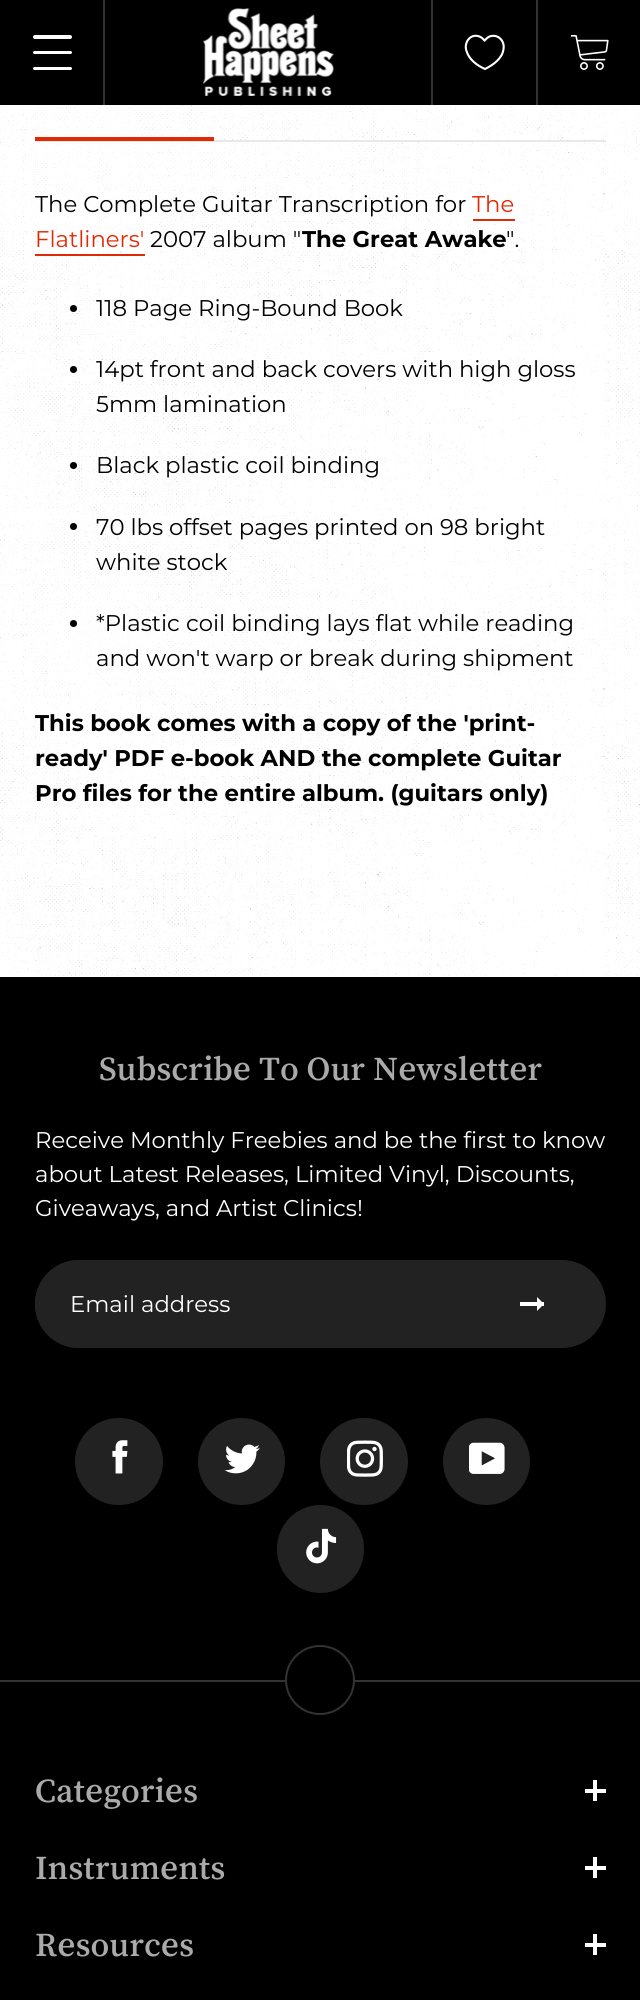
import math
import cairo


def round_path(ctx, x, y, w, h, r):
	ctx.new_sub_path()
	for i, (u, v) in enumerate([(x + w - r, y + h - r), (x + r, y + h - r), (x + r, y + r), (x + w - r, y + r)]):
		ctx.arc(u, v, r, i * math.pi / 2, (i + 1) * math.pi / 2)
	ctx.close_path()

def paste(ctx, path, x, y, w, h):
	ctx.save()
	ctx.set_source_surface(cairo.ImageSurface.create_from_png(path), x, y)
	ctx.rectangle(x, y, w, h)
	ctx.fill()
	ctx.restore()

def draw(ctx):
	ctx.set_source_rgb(1, 1, 1)
	ctx.paint()
	ctx.set_source_rgb(0, 0, 0)
	ctx.rectangle(0, 0, 640, 105)
	ctx.fill()
	ctx.set_source_rgb(0.2, 0.2, 0.2)
	ctx.rectangle(103, 0, 2, 105)
	ctx.fill()
	ctx.set_source_rgb(1, 1, 1)
	round_path(ctx, 33, 35, 39, 4, 2)
	ctx.fill()
	round_path(ctx, 33, 51, 39, 3, 1.5)
	ctx.fill()
	round_path(ctx, 33, 67, 39, 3, 1.5)
	ctx.fill()
	paste(ctx, 'media/1.png', 203, 8, 131, 88)
	ctx.set_source_rgb(0.2, 0.2, 0.2)
	ctx.rectangle(431, 0, 2, 105)
	ctx.fill()
	ctx.new_path()
	ctx.move_to(485, 69)
	ctx.curve_to(477, 65.5, 469, 59.5, 466.5, 51)
	ctx.curve_to(463.5, 42.5, 470.5, 33, 479.5, 36.5)
	ctx.curve_to(482, 37.5, 483, 39, 484.5, 40.5)
	ctx.curve_to(486, 39, 487.5, 37.5, 489.5, 36.5)
	ctx.curve_to(498, 33.5, 505, 41, 503.5, 49)
	ctx.curve_to(502.5, 58.5, 493, 65, 485, 69)
	ctx.close_path()
	ctx.set_source_rgb(1, 1, 1)
	ctx.set_line_width(2.1)
	ctx.stroke()
	ctx.set_source_rgb(0.2, 0.2, 0.2)
	ctx.rectangle(536, 0, 2, 105)
	ctx.fill()
	paste(ctx, 'media/2.png', 571, 35, 38, 35)
	paste(ctx, 'media/3.png', 0, 105, 640, 871)
	ctx.set_source_rgb(0.914, 0.914, 0.914)
	ctx.rectangle(35, 140, 571, 2)
	ctx.fill()
	ctx.set_source_rgb(0.878, 0.165, 0.02)
	ctx.rectangle(35, 137, 179, 4)
	ctx.fill()
	ctx.select_font_face('Montserrat')
	ctx.set_font_size(22.75)
	ctx.set_source_rgb(0, 0, 0)
	ctx.move_to(35, 212)
	ctx.show_text('The Complete Guitar Transcription for')
	ctx.set_source_rgb(0.878, 0.165, 0.02)
	ctx.move_to(472, 212)
	ctx.show_text('The')
	ctx.rectangle(473, 219, 42, 2)
	ctx.fill()
	ctx.move_to(35, 247)
	ctx.show_text('Flatliners\'')
	ctx.rectangle(35, 254, 110, 2)
	ctx.fill()
	ctx.set_source_rgb(0, 0, 0)
	ctx.move_to(150, 247)
	ctx.show_text('2007 album "')
	ctx.select_font_face('Montserrat', cairo.FONT_SLANT_NORMAL, cairo.FONT_WEIGHT_BOLD)
	ctx.move_to(302, 247)
	ctx.show_text('The Great Awake')
	ctx.select_font_face('Montserrat')
	ctx.move_to(506, 247)
	ctx.show_text('".')
	ctx.new_path()
	ctx.arc(73.5, 308.5, 3.5, 0, 2 * math.pi)
	ctx.fill()
	ctx.move_to(96, 316)
	ctx.show_text('118 Page Ring-Bound Book')
	ctx.new_path()
	ctx.arc(73.5, 369.5, 3.5, 0, 2 * math.pi)
	ctx.fill()
	ctx.move_to(96, 377)
	ctx.show_text('14pt front and back covers with high gloss')
	ctx.move_to(96, 412)
	ctx.show_text('5mm lamination')
	ctx.new_path()
	ctx.arc(73.5, 465.5, 3.5, 0, 2 * math.pi)
	ctx.fill()
	ctx.move_to(96, 473)
	ctx.show_text('Black plastic coil binding')
	ctx.new_path()
	ctx.arc(73.5, 526.5, 3.5, 0, 2 * math.pi)
	ctx.fill()
	ctx.move_to(96, 535)
	ctx.show_text('70 lbs offset pages printed on 98 bright')
	ctx.move_to(96, 570)
	ctx.show_text('white stock')
	ctx.new_path()
	ctx.arc(73.5, 623.5, 3.5, 0, 2 * math.pi)
	ctx.fill()
	ctx.move_to(96, 631)
	ctx.show_text('*Plastic coil binding lays flat while reading')
	ctx.move_to(96, 666)
	ctx.show_text('and won\'t warp or break during shipment')
	ctx.select_font_face('Montserrat', cairo.FONT_SLANT_NORMAL, cairo.FONT_WEIGHT_BOLD)
	for x, y, s in [
		(35, 731, 'This book comes with a copy of the \'print-'),
		(35, 766, 'ready\' PDF e-book AND the complete Guitar'),
		(35, 801, 'Pro files for the entire album. (guitars only)'),
	]:
		ctx.move_to(x, y)
		ctx.show_text(s)
	ctx.rectangle(0, 977, 640, 1023)
	ctx.fill()
	ctx.select_font_face('Song Myung')
	ctx.set_font_size(35)
	ctx.set_source_rgb(0.667, 0.667, 0.667)
	ctx.move_to(99, 1080)
	ctx.show_text('Subscribe To Our Newsletter')
	ctx.select_font_face('Montserrat')
	ctx.set_font_size(22.75)
	ctx.set_source_rgb(1, 1, 1)
	for x, y, s in [
		(35, 1148, 'Receive Monthly Freebies and be the first to know'),
		(35, 1182, 'about Latest Releases, Limited Vinyl, Discounts,'),
		(35, 1216, 'Giveaways, and Artist Clinics!'),
	]:
		ctx.move_to(x, y)
		ctx.show_text(s)
	ctx.set_source_rgb(0.133, 0.133, 0.133)
	round_path(ctx, 35, 1260, 571, 88, 44)
	ctx.fill()
	ctx.new_path()
	ctx.move_to(79, 1260)
	ctx.line_to(518, 1260)
	ctx.line_to(518, 1348)
	ctx.line_to(79, 1348)
	ctx.curve_to(54.5, 1348, 35, 1328.5, 35, 1304)
	ctx.curve_to(35, 1279.5, 54.5, 1260, 79, 1260)
	ctx.close_path()
	ctx.fill()
	ctx.set_source_rgb(1, 1, 1)
	ctx.move_to(70, 1312)
	ctx.show_text('Email address')
	ctx.set_fill_rule(cairo.FILL_RULE_EVEN_ODD)
	ctx.new_path()
	ctx.move_to(537, 1311)
	ctx.line_to(544, 1304)
	ctx.line_to(537, 1297)
	ctx.fill()
	ctx.rectangle(520, 1302, 24, 4)
	ctx.fill()
	ctx.set_source_rgb(0.133, 0.133, 0.133)
	round_path(ctx, 75, 1418, 88, 87, 43.5)
	ctx.fill()
	paste(ctx, 'media/4.png', 112, 1440, 16, 34)
	ctx.arc(241.5, 1461.5, 43.5, 0, 2 * math.pi)
	ctx.fill()
	paste(ctx, 'media/5.png', 224, 1444, 36, 30)
	round_path(ctx, 320, 1418, 88, 87, 43.5)
	ctx.fill()
	paste(ctx, 'media/6.png', 347, 1440, 36, 37)
	ctx.arc(486.5, 1461.5, 43.5, 0, 2 * math.pi)
	ctx.fill()
	paste(ctx, 'media/7.png', 469, 1442, 36, 32)
	round_path(ctx, 277, 1505, 87, 88, 43.5)
	ctx.fill()
	paste(ctx, 'media/8.png', 306, 1528, 31, 36)
	ctx.set_source_rgb(0.2, 0.2, 0.2)
	ctx.rectangle(0, 1680, 640, 2)
	ctx.fill()
	ctx.set_source_rgb(0, 0, 0)
	ctx.arc(320, 1680, 35, 0, 2 * math.pi)
	ctx.fill()
	ctx.arc(320, 1680, 34, 0, 2 * math.pi)
	ctx.set_source_rgba(1, 1, 1, 0.2)
	ctx.set_line_width(2)
	ctx.stroke()
	ctx.select_font_face('Song Myung')
	ctx.set_font_size(35)
	ctx.set_source_rgb(0.667, 0.667, 0.667)
	ctx.move_to(35, 1802)
	ctx.show_text('Categories')
	ctx.set_source_rgb(1, 1, 1)
	ctx.rectangle(585, 1789, 21, 4)
	ctx.fill()
	ctx.rectangle(593, 1780, 4, 21)
	ctx.fill()
	ctx.set_source_rgb(0.667, 0.667, 0.667)
	ctx.move_to(35, 1879)
	ctx.show_text('Instruments')
	ctx.set_source_rgb(1, 1, 1)
	ctx.rectangle(585, 1866, 21, 4)
	ctx.fill()
	ctx.rectangle(593, 1857, 4, 21)
	ctx.fill()
	ctx.set_source_rgb(0.667, 0.667, 0.667)
	ctx.move_to(35, 1956)
	ctx.show_text('Resources')
	ctx.set_source_rgb(1, 1, 1)
	ctx.rectangle(585, 1943, 21, 4)
	ctx.fill()
	ctx.rectangle(593, 1934, 4, 21)
	ctx.fill()


surface = cairo.ImageSurface(cairo.FORMAT_RGB24, 640, 2000)
ctx = cairo.Context(surface)
options = cairo.FontOptions()
options.set_hint_metrics(cairo.HINT_METRICS_OFF)
options.set_hint_style(cairo.HINT_STYLE_NONE)
ctx.set_font_options(options)
ctx.set_miter_limit(4)
draw(ctx)
surface.write_to_png('image.png')
